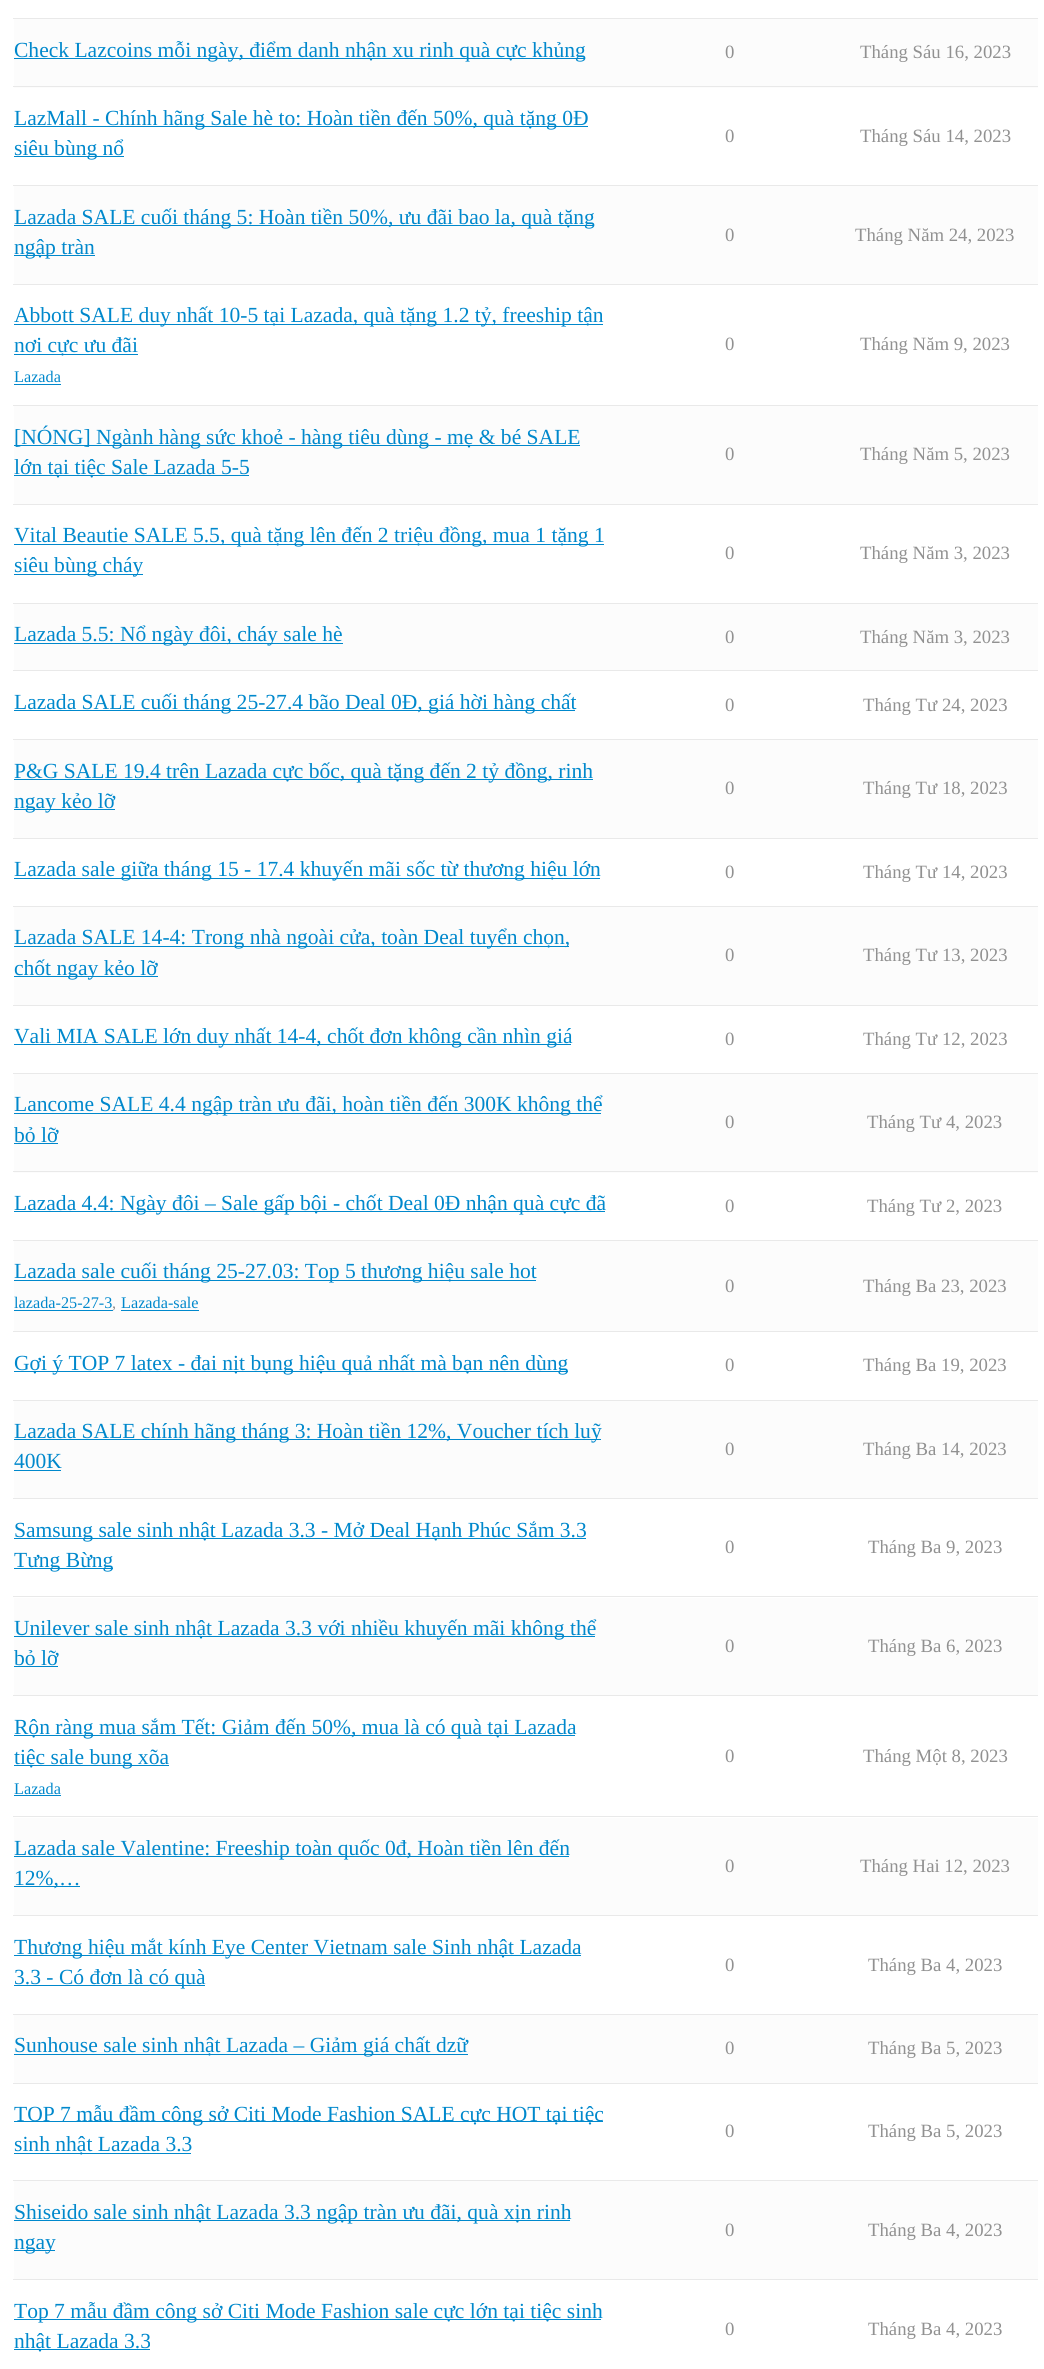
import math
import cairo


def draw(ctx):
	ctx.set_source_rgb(1, 1, 1)
	ctx.paint()
	ctx.set_source_rgb(0.914, 0.914, 0.914)
	ctx.rectangle(13, 18, 1025, 1)
	ctx.fill()
	ctx.set_source_rgb(0.988, 0.988, 0.988)
	ctx.rectangle(14, 19, 1024, 69)
	ctx.fill()
	ctx.set_source_rgb(0.914, 0.914, 0.914)
	ctx.rectangle(13, 86, 1025, 1)
	ctx.fill()
	ctx.set_source_rgb(0, 0.533, 0.8)
	ctx.rectangle(14, 58, 571, 1)
	ctx.fill()
	ctx.select_font_face('Liberation Serif')
	ctx.set_font_size(21.55)
	ctx.move_to(14, 57)
	ctx.show_text('Check Lazcoins mỗi ngày, điểm danh nhận xu rinh quà cực khủng')
	ctx.set_font_size(18.75)
	ctx.set_source_rgb(0.569, 0.569, 0.569)
	ctx.move_to(725, 58)
	ctx.show_text('0')
	ctx.move_to(860, 58)
	ctx.show_text('Tháng Sáu 16, 2023')
	ctx.set_source_rgb(0.914, 0.914, 0.914)
	ctx.rectangle(13, 185, 1025, 1)
	ctx.fill()
	ctx.set_source_rgb(0, 0.533, 0.8)
	ctx.rectangle(14, 126, 574, 1)
	ctx.fill()
	ctx.set_font_size(21.55)
	ctx.move_to(14, 125)
	ctx.show_text('LazMall - Chính hãng Sale hè to: Hoàn tiền đến 50%, quà tặng 0Đ')
	ctx.rectangle(14, 156, 110, 1)
	ctx.fill()
	ctx.move_to(14, 155)
	ctx.show_text('siêu bùng nổ')
	ctx.set_font_size(18.75)
	ctx.set_source_rgb(0.569, 0.569, 0.569)
	ctx.move_to(725, 142)
	ctx.show_text('0')
	ctx.move_to(860, 142)
	ctx.show_text('Tháng Sáu 14, 2023')
	ctx.set_source_rgb(0.988, 0.988, 0.988)
	ctx.rectangle(14, 186, 1024, 98)
	ctx.fill()
	ctx.set_source_rgb(0.914, 0.914, 0.914)
	ctx.rectangle(13, 284, 1025, 1)
	ctx.fill()
	ctx.set_source_rgb(0, 0.533, 0.8)
	ctx.rectangle(14, 225, 580, 1)
	ctx.fill()
	ctx.set_font_size(21.55)
	ctx.move_to(14, 224)
	ctx.show_text('Lazada SALE cuối tháng 5: Hoàn tiền 50%, ưu đãi bao la, quà tặng')
	ctx.rectangle(14, 255, 81, 1)
	ctx.fill()
	ctx.move_to(14, 254)
	ctx.show_text('ngập tràn')
	ctx.set_font_size(18.75)
	ctx.set_source_rgb(0.569, 0.569, 0.569)
	ctx.move_to(725, 241)
	ctx.show_text('0')
	ctx.move_to(855, 241)
	ctx.show_text('Tháng Năm 24, 2023')
	ctx.set_source_rgb(0.914, 0.914, 0.914)
	ctx.rectangle(13, 405, 1025, 1)
	ctx.fill()
	ctx.set_source_rgb(0, 0.533, 0.8)
	ctx.rectangle(14, 324, 589, 1)
	ctx.fill()
	ctx.set_font_size(21.55)
	ctx.move_to(14, 322)
	ctx.show_text('Abbott SALE duy nhất 10-5 tại Lazada, quà tặng 1.2 tỷ, freeship tận')
	ctx.rectangle(14, 354, 124, 1)
	ctx.fill()
	ctx.move_to(14, 352)
	ctx.show_text('nơi cực ưu đãi')
	ctx.set_font_size(16.25)
	ctx.move_to(14, 382)
	ctx.show_text('Lazada')
	ctx.rectangle(14, 384, 47, 1)
	ctx.fill()
	ctx.set_font_size(18.75)
	ctx.set_source_rgb(0.569, 0.569, 0.569)
	ctx.move_to(725, 350)
	ctx.show_text('0')
	ctx.move_to(860, 350)
	ctx.show_text('Tháng Năm 9, 2023')
	ctx.set_source_rgb(0.988, 0.988, 0.988)
	ctx.rectangle(14, 406, 1024, 98)
	ctx.fill()
	ctx.set_source_rgb(0.914, 0.914, 0.914)
	ctx.rectangle(13, 504, 1025, 1)
	ctx.fill()
	ctx.set_source_rgb(0, 0.533, 0.8)
	ctx.rectangle(14, 445, 566, 1)
	ctx.fill()
	ctx.set_font_size(21.55)
	ctx.move_to(14, 444)
	ctx.show_text('[NÓNG] Ngành hàng sức khoẻ - hàng tiêu dùng - mẹ & bé SALE')
	ctx.rectangle(14, 475, 235, 1)
	ctx.fill()
	ctx.move_to(14, 474)
	ctx.show_text('lớn tại tiệc Sale Lazada 5-5')
	ctx.set_font_size(18.75)
	ctx.set_source_rgb(0.569, 0.569, 0.569)
	ctx.move_to(725, 460)
	ctx.show_text('0')
	ctx.move_to(860, 460)
	ctx.show_text('Tháng Năm 5, 2023')
	ctx.set_source_rgb(0.914, 0.914, 0.914)
	ctx.rectangle(13, 603, 1025, 1)
	ctx.fill()
	ctx.set_source_rgb(0, 0.533, 0.8)
	ctx.rectangle(14, 544, 590, 1)
	ctx.fill()
	ctx.set_font_size(21.55)
	ctx.move_to(14, 542)
	ctx.show_text('Vital Beautie SALE 5.5, quà tặng lên đến 2 triệu đồng, mua 1 tặng 1')
	ctx.rectangle(14, 574, 129, 1)
	ctx.fill()
	ctx.move_to(14, 572)
	ctx.show_text('siêu bùng cháy')
	ctx.set_font_size(18.75)
	ctx.set_source_rgb(0.569, 0.569, 0.569)
	ctx.move_to(725, 559)
	ctx.show_text('0')
	ctx.move_to(860, 559)
	ctx.show_text('Tháng Năm 3, 2023')
	ctx.set_source_rgb(0.988, 0.988, 0.988)
	ctx.rectangle(14, 604, 1024, 66)
	ctx.fill()
	ctx.set_source_rgb(0.914, 0.914, 0.914)
	ctx.rectangle(13, 670, 1025, 1)
	ctx.fill()
	ctx.set_source_rgb(0, 0.533, 0.8)
	ctx.rectangle(14, 643, 329, 1)
	ctx.fill()
	ctx.set_font_size(21.55)
	ctx.move_to(14, 641)
	ctx.show_text('Lazada 5.5: Nổ ngày đôi, cháy sale hè')
	ctx.set_font_size(18.75)
	ctx.set_source_rgb(0.569, 0.569, 0.569)
	ctx.move_to(725, 643)
	ctx.show_text('0')
	ctx.move_to(860, 643)
	ctx.show_text('Tháng Năm 3, 2023')
	ctx.set_source_rgb(0.914, 0.914, 0.914)
	ctx.rectangle(13, 739, 1025, 1)
	ctx.fill()
	ctx.set_source_rgb(0, 0.533, 0.8)
	ctx.rectangle(14, 710, 561, 1)
	ctx.fill()
	ctx.set_font_size(21.55)
	ctx.move_to(14, 709)
	ctx.show_text('Lazada SALE cuối tháng 25-27.4 bão Deal 0Đ, giá hời hàng chất')
	ctx.set_font_size(18.75)
	ctx.set_source_rgb(0.569, 0.569, 0.569)
	ctx.move_to(725, 711)
	ctx.show_text('0')
	ctx.move_to(863, 711)
	ctx.show_text('Tháng Tư 24, 2023')
	ctx.set_source_rgb(0.988, 0.988, 0.988)
	ctx.rectangle(14, 740, 1024, 98)
	ctx.fill()
	ctx.set_source_rgb(0.914, 0.914, 0.914)
	ctx.rectangle(13, 838, 1025, 1)
	ctx.fill()
	ctx.set_source_rgb(0, 0.533, 0.8)
	ctx.rectangle(14, 779, 579, 1)
	ctx.fill()
	ctx.set_font_size(21.55)
	ctx.move_to(14, 778)
	ctx.show_text('P&G SALE 19.4 trên Lazada cực bốc, quà tặng đến 2 tỷ đồng, rinh')
	ctx.rectangle(14, 809, 101, 1)
	ctx.fill()
	ctx.move_to(14, 808)
	ctx.show_text('ngay kẻo lỡ')
	ctx.set_font_size(18.75)
	ctx.set_source_rgb(0.569, 0.569, 0.569)
	ctx.move_to(725, 794)
	ctx.show_text('0')
	ctx.move_to(863, 794)
	ctx.show_text('Tháng Tư 18, 2023')
	ctx.set_source_rgb(0.914, 0.914, 0.914)
	ctx.rectangle(13, 906, 1025, 1)
	ctx.fill()
	ctx.set_source_rgb(0, 0.533, 0.8)
	ctx.rectangle(14, 878, 586, 1)
	ctx.fill()
	ctx.set_font_size(21.55)
	ctx.move_to(14, 876)
	ctx.show_text('Lazada sale giữa tháng 15 - 17.4 khuyến mãi sốc từ thương hiệu lớn')
	ctx.set_font_size(18.75)
	ctx.set_source_rgb(0.569, 0.569, 0.569)
	ctx.move_to(725, 878)
	ctx.show_text('0')
	ctx.move_to(863, 878)
	ctx.show_text('Tháng Tư 14, 2023')
	ctx.set_source_rgb(0.988, 0.988, 0.988)
	ctx.rectangle(14, 907, 1024, 98)
	ctx.fill()
	ctx.set_source_rgb(0.914, 0.914, 0.914)
	ctx.rectangle(13, 1005, 1025, 1)
	ctx.fill()
	ctx.set_source_rgb(0, 0.533, 0.8)
	ctx.rectangle(14, 946, 555, 1)
	ctx.fill()
	ctx.set_font_size(21.55)
	ctx.move_to(14, 944)
	ctx.show_text('Lazada SALE 14-4: Trong nhà ngoài cửa, toàn Deal tuyển chọn,')
	ctx.rectangle(14, 976, 144, 1)
	ctx.fill()
	ctx.move_to(14, 975)
	ctx.show_text('chốt ngay kẻo lỡ')
	ctx.set_font_size(18.75)
	ctx.set_source_rgb(0.569, 0.569, 0.569)
	ctx.move_to(725, 961)
	ctx.show_text('0')
	ctx.move_to(863, 961)
	ctx.show_text('Tháng Tư 13, 2023')
	ctx.set_source_rgb(0.914, 0.914, 0.914)
	ctx.rectangle(13, 1073, 1025, 1)
	ctx.fill()
	ctx.set_source_rgb(0, 0.533, 0.8)
	ctx.rectangle(14, 1044, 557, 1)
	ctx.fill()
	ctx.set_font_size(21.55)
	ctx.move_to(14, 1043)
	ctx.show_text('Vali MIA SALE lớn duy nhất 14-4, chốt đơn không cần nhìn giá')
	ctx.set_font_size(18.75)
	ctx.set_source_rgb(0.569, 0.569, 0.569)
	ctx.move_to(725, 1045)
	ctx.show_text('0')
	ctx.move_to(863, 1045)
	ctx.show_text('Tháng Tư 12, 2023')
	ctx.set_source_rgb(0.988, 0.988, 0.988)
	ctx.rectangle(14, 1074, 1024, 99)
	ctx.fill()
	ctx.set_source_rgb(0.914, 0.914, 0.914)
	ctx.rectangle(13, 1171, 1025, 1)
	ctx.fill()
	ctx.set_source_rgb(0, 0.533, 0.8)
	ctx.rectangle(14, 1113, 587, 1)
	ctx.fill()
	ctx.set_font_size(21.55)
	ctx.move_to(14, 1111)
	ctx.show_text('Lancome SALE 4.4 ngập tràn ưu đãi, hoàn tiền đến 300K không thể')
	ctx.move_to(14, 1142)
	ctx.show_text('bỏ lỡ')
	ctx.rectangle(14, 1143, 44, 1)
	ctx.fill()
	ctx.set_font_size(18.75)
	ctx.set_source_rgb(0.569, 0.569, 0.569)
	ctx.move_to(725, 1128)
	ctx.show_text('0')
	ctx.move_to(867, 1128)
	ctx.show_text('Tháng Tư 4, 2023')
	ctx.set_source_rgb(0.914, 0.914, 0.914)
	ctx.rectangle(13, 1240, 1025, 1)
	ctx.fill()
	ctx.set_source_rgb(0, 0.533, 0.8)
	ctx.rectangle(14, 1211, 591, 1)
	ctx.fill()
	ctx.set_font_size(21.55)
	ctx.move_to(14, 1210)
	ctx.show_text('Lazada 4.4: Ngày đôi – Sale gấp bội - chốt Deal 0Đ nhận quà cực đã')
	ctx.set_font_size(18.75)
	ctx.set_source_rgb(0.569, 0.569, 0.569)
	ctx.move_to(725, 1212)
	ctx.show_text('0')
	ctx.move_to(867, 1212)
	ctx.show_text('Tháng Tư 2, 2023')
	ctx.set_source_rgb(0.988, 0.988, 0.988)
	ctx.rectangle(14, 1241, 1024, 90)
	ctx.fill()
	ctx.set_source_rgb(0.914, 0.914, 0.914)
	ctx.rectangle(13, 1331, 1025, 1)
	ctx.fill()
	ctx.set_source_rgb(0, 0.533, 0.8)
	ctx.rectangle(14, 1280, 522, 1)
	ctx.fill()
	ctx.set_font_size(21.55)
	ctx.move_to(14, 1278)
	ctx.show_text('Lazada sale cuối tháng 25-27.03: Top 5 thương hiệu sale hot')
	ctx.set_font_size(16.25)
	ctx.move_to(14, 1308)
	ctx.show_text('lazada-25-27-3')
	ctx.rectangle(14, 1310, 99, 1)
	ctx.fill()
	ctx.set_source_rgb(0.569, 0.569, 0.569)
	ctx.move_to(112, 1308)
	ctx.show_text(',')
	ctx.set_source_rgb(0, 0.533, 0.8)
	ctx.move_to(121, 1308)
	ctx.show_text('Lazada-sale')
	ctx.rectangle(121, 1310, 78, 1)
	ctx.fill()
	ctx.set_font_size(18.75)
	ctx.set_source_rgb(0.569, 0.569, 0.569)
	ctx.move_to(725, 1292)
	ctx.show_text('0')
	ctx.move_to(863, 1292)
	ctx.show_text('Tháng Ba 23, 2023')
	ctx.set_source_rgb(0.914, 0.914, 0.914)
	ctx.rectangle(13, 1400, 1025, 1)
	ctx.fill()
	ctx.set_source_rgb(0, 0.533, 0.8)
	ctx.rectangle(14, 1371, 554, 1)
	ctx.fill()
	ctx.set_font_size(21.55)
	ctx.move_to(14, 1370)
	ctx.show_text('Gợi ý TOP 7 latex - đai nịt bụng hiệu quả nhất mà bạn nên dùng')
	ctx.set_font_size(18.75)
	ctx.set_source_rgb(0.569, 0.569, 0.569)
	ctx.move_to(725, 1371)
	ctx.show_text('0')
	ctx.move_to(863, 1371)
	ctx.show_text('Tháng Ba 19, 2023')
	ctx.set_source_rgb(0.988, 0.988, 0.988)
	ctx.rectangle(14, 1401, 1024, 97)
	ctx.fill()
	ctx.set_source_rgb(0.914, 0.914, 0.914)
	ctx.rectangle(13, 1498, 1025, 1)
	ctx.fill()
	ctx.set_source_rgb(0, 0.533, 0.8)
	ctx.rectangle(14, 1439, 587, 1)
	ctx.fill()
	ctx.set_font_size(21.55)
	ctx.move_to(14, 1438)
	ctx.show_text('Lazada SALE chính hãng tháng 3: Hoàn tiền 12%, Voucher tích luỹ')
	ctx.move_to(14, 1468)
	ctx.show_text('400K')
	ctx.rectangle(14, 1470, 47, 1)
	ctx.fill()
	ctx.set_font_size(18.75)
	ctx.set_source_rgb(0.569, 0.569, 0.569)
	ctx.move_to(725, 1455)
	ctx.show_text('0')
	ctx.move_to(863, 1455)
	ctx.show_text('Tháng Ba 14, 2023')
	ctx.set_source_rgb(0.914, 0.914, 0.914)
	ctx.rectangle(13, 1596, 1025, 1)
	ctx.fill()
	ctx.set_source_rgb(0, 0.533, 0.8)
	ctx.rectangle(14, 1538, 572, 1)
	ctx.fill()
	ctx.set_font_size(21.55)
	ctx.move_to(14, 1537)
	ctx.show_text('Samsung sale sinh nhật Lazada 3.3 - Mở Deal Hạnh Phúc Sắm 3.3')
	ctx.rectangle(14, 1568, 99, 1)
	ctx.fill()
	ctx.move_to(14, 1567)
	ctx.show_text('Tưng Bừng')
	ctx.set_font_size(18.75)
	ctx.set_source_rgb(0.569, 0.569, 0.569)
	ctx.move_to(725, 1553)
	ctx.show_text('0')
	ctx.move_to(868, 1553)
	ctx.show_text('Tháng Ba 9, 2023')
	ctx.set_source_rgb(0.988, 0.988, 0.988)
	ctx.rectangle(14, 1598, 1024, 97)
	ctx.fill()
	ctx.set_source_rgb(0.914, 0.914, 0.914)
	ctx.rectangle(13, 1695, 1025, 1)
	ctx.fill()
	ctx.set_source_rgb(0, 0.533, 0.8)
	ctx.rectangle(14, 1636, 581, 1)
	ctx.fill()
	ctx.set_font_size(21.55)
	ctx.move_to(14, 1635)
	ctx.show_text('Unilever sale sinh nhật Lazada 3.3 với nhiều khuyến mãi không thể')
	ctx.move_to(14, 1665)
	ctx.show_text('bỏ lỡ')
	ctx.rectangle(14, 1666, 44, 1)
	ctx.fill()
	ctx.set_font_size(18.75)
	ctx.set_source_rgb(0.569, 0.569, 0.569)
	ctx.move_to(725, 1652)
	ctx.show_text('0')
	ctx.move_to(868, 1652)
	ctx.show_text('Tháng Ba 6, 2023')
	ctx.set_source_rgb(0.914, 0.914, 0.914)
	ctx.rectangle(13, 1816, 1025, 1)
	ctx.fill()
	ctx.set_source_rgb(0, 0.533, 0.8)
	ctx.rectangle(14, 1735, 561, 1)
	ctx.fill()
	ctx.set_font_size(21.55)
	ctx.move_to(14, 1734)
	ctx.show_text('Rộn ràng mua sắm Tết: Giảm đến 50%, mua là có quà tại Lazada')
	ctx.rectangle(14, 1765, 155, 1)
	ctx.fill()
	ctx.move_to(14, 1764)
	ctx.show_text('tiệc sale bung xõa')
	ctx.set_font_size(16.25)
	ctx.move_to(14, 1794)
	ctx.show_text('Lazada')
	ctx.rectangle(14, 1795, 47, 1)
	ctx.fill()
	ctx.set_font_size(18.75)
	ctx.set_source_rgb(0.569, 0.569, 0.569)
	ctx.move_to(725, 1762)
	ctx.show_text('0')
	ctx.move_to(863, 1762)
	ctx.show_text('Tháng Một 8, 2023')
	ctx.set_source_rgb(0.988, 0.988, 0.988)
	ctx.rectangle(14, 1818, 1024, 97)
	ctx.fill()
	ctx.set_source_rgb(0.914, 0.914, 0.914)
	ctx.rectangle(13, 1915, 1025, 1)
	ctx.fill()
	ctx.set_source_rgb(0, 0.533, 0.8)
	ctx.rectangle(14, 1856, 555, 1)
	ctx.fill()
	ctx.set_font_size(21.55)
	ctx.move_to(14, 1855)
	ctx.show_text('Lazada sale Valentine: Freeship toàn quốc 0đ, Hoàn tiền lên đến')
	ctx.rectangle(14, 1886, 66, 1)
	ctx.fill()
	ctx.move_to(14, 1885)
	ctx.show_text('12%,…')
	ctx.set_font_size(18.75)
	ctx.set_source_rgb(0.569, 0.569, 0.569)
	ctx.move_to(725, 1872)
	ctx.show_text('0')
	ctx.move_to(860, 1872)
	ctx.show_text('Tháng Hai 12, 2023')
	ctx.set_source_rgb(0.914, 0.914, 0.914)
	ctx.rectangle(13, 2014, 1025, 1)
	ctx.fill()
	ctx.set_source_rgb(0, 0.533, 0.8)
	ctx.rectangle(14, 1955, 567, 1)
	ctx.fill()
	ctx.set_font_size(21.55)
	ctx.move_to(14, 1954)
	ctx.show_text('Thương hiệu mắt kính Eye Center Vietnam sale Sinh nhật Lazada')
	ctx.rectangle(14, 1985, 191, 1)
	ctx.fill()
	ctx.move_to(14, 1984)
	ctx.show_text('3.3 - Có đơn là có quà')
	ctx.set_font_size(18.75)
	ctx.set_source_rgb(0.569, 0.569, 0.569)
	ctx.move_to(725, 1971)
	ctx.show_text('0')
	ctx.move_to(868, 1971)
	ctx.show_text('Tháng Ba 4, 2023')
	ctx.set_source_rgb(0.988, 0.988, 0.988)
	ctx.rectangle(14, 2015, 1024, 68)
	ctx.fill()
	ctx.set_source_rgb(0.914, 0.914, 0.914)
	ctx.rectangle(13, 2083, 1025, 1)
	ctx.fill()
	ctx.set_source_rgb(0, 0.533, 0.8)
	ctx.rectangle(14, 2054, 454, 1)
	ctx.fill()
	ctx.set_font_size(21.55)
	ctx.move_to(14, 2052)
	ctx.show_text('Sunhouse sale sinh nhật Lazada – Giảm giá chất dzữ')
	ctx.set_font_size(18.75)
	ctx.set_source_rgb(0.569, 0.569, 0.569)
	ctx.move_to(725, 2054)
	ctx.show_text('0')
	ctx.move_to(868, 2054)
	ctx.show_text('Tháng Ba 5, 2023')
	ctx.set_source_rgb(0.914, 0.914, 0.914)
	ctx.rectangle(13, 2180, 1025, 1)
	ctx.fill()
	ctx.set_source_rgb(0, 0.533, 0.8)
	ctx.rectangle(14, 2121, 589, 1)
	ctx.fill()
	ctx.set_font_size(21.55)
	ctx.move_to(14, 2121)
	ctx.show_text('TOP 7 mẫu đầm công sở Citi Mode Fashion SALE cực HOT tại tiệc')
	ctx.rectangle(14, 2153, 177, 1)
	ctx.fill()
	ctx.move_to(14, 2151)
	ctx.show_text('sinh nhật Lazada 3.3')
	ctx.set_font_size(18.75)
	ctx.set_source_rgb(0.569, 0.569, 0.569)
	ctx.move_to(725, 2137)
	ctx.show_text('0')
	ctx.move_to(868, 2137)
	ctx.show_text('Tháng Ba 5, 2023')
	ctx.set_source_rgb(0.988, 0.988, 0.988)
	ctx.rectangle(14, 2181, 1024, 98)
	ctx.fill()
	ctx.set_source_rgb(0.914, 0.914, 0.914)
	ctx.rectangle(13, 2279, 1025, 1)
	ctx.fill()
	ctx.set_source_rgb(0, 0.533, 0.8)
	ctx.rectangle(14, 2220, 556, 1)
	ctx.fill()
	ctx.set_font_size(21.55)
	ctx.move_to(14, 2219)
	ctx.show_text('Shiseido sale sinh nhật Lazada 3.3 ngập tràn ưu đãi, quà xịn rinh')
	ctx.rectangle(14, 2250, 41, 1)
	ctx.fill()
	ctx.move_to(14, 2249)
	ctx.show_text('ngay')
	ctx.set_font_size(18.75)
	ctx.set_source_rgb(0.569, 0.569, 0.569)
	ctx.move_to(725, 2236)
	ctx.show_text('0')
	ctx.move_to(868, 2236)
	ctx.show_text('Tháng Ba 4, 2023')
	ctx.set_source_rgb(0, 0.533, 0.8)
	ctx.rectangle(14, 2319, 587, 1)
	ctx.fill()
	ctx.set_font_size(21.55)
	ctx.move_to(14, 2318)
	ctx.show_text('Top 7 mẫu đầm công sở Citi Mode Fashion sale cực lớn tại tiệc sinh')
	ctx.rectangle(14, 2349, 136, 1)
	ctx.fill()
	ctx.move_to(14, 2348)
	ctx.show_text('nhật Lazada 3.3')
	ctx.set_font_size(18.75)
	ctx.set_source_rgb(0.569, 0.569, 0.569)
	ctx.move_to(725, 2335)
	ctx.show_text('0')
	ctx.move_to(868, 2335)
	ctx.show_text('Tháng Ba 4, 2023')


surface = cairo.ImageSurface(cairo.FORMAT_RGB24, 1044, 2369)
ctx = cairo.Context(surface)
options = cairo.FontOptions()
options.set_hint_metrics(cairo.HINT_METRICS_OFF)
options.set_hint_style(cairo.HINT_STYLE_NONE)
ctx.set_font_options(options)
ctx.set_miter_limit(4)
draw(ctx)
surface.write_to_png('image.png')
